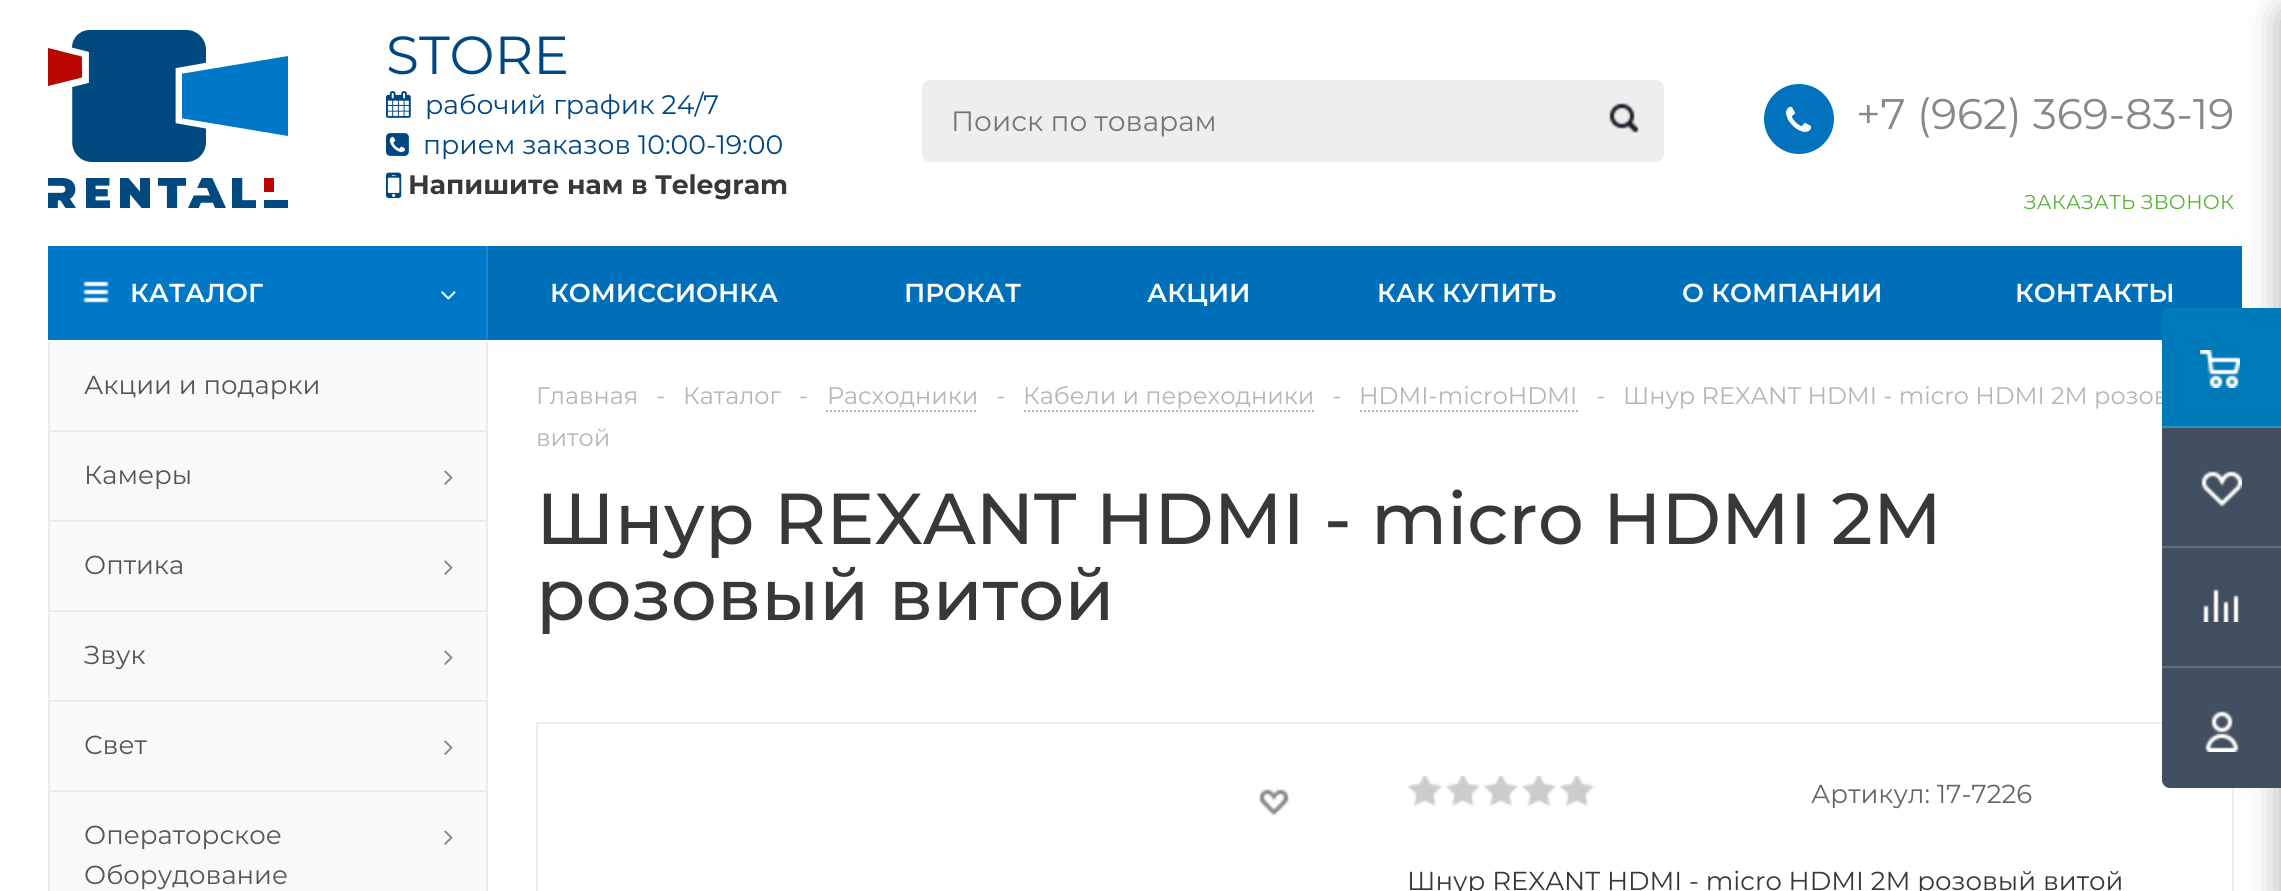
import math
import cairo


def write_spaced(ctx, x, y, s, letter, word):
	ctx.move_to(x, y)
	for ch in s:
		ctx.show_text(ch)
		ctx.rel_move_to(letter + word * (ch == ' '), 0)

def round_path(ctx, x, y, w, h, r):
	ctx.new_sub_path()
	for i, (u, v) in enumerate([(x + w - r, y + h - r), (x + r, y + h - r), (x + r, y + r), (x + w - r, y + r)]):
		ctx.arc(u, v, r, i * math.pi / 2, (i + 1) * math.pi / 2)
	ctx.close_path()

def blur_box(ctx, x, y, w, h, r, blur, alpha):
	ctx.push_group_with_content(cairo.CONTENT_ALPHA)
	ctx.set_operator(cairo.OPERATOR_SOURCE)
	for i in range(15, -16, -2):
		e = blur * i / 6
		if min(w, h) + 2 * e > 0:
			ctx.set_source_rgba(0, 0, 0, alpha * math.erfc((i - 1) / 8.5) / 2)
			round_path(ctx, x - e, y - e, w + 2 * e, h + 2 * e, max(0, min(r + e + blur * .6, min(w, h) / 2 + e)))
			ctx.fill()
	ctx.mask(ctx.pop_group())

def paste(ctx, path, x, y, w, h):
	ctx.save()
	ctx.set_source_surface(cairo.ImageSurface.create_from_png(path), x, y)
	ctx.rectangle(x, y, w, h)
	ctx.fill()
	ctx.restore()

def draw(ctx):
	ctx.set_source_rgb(1, 1, 1)
	ctx.paint()
	paste(ctx, 'media/1.png', 48, 30, 240, 178)
	ctx.select_font_face('Montserrat')
	ctx.set_font_size(53.5)
	ctx.set_source_rgb(0, 0.275, 0.51)
	ctx.move_to(386, 74)
	ctx.show_text('STORE')
	paste(ctx, 'media/2.png', 386, 91, 25, 27)
	ctx.set_font_size(26.7)
	ctx.move_to(425, 114)
	ctx.show_text('рабочий график 24/7')
	paste(ctx, 'media/3.png', 386, 133, 23, 23)
	ctx.move_to(423, 154)
	ctx.show_text('прием заказов 10:00-19:00')
	paste(ctx, 'media/4.png', 386, 172, 16, 26)
	ctx.select_font_face('Montserrat', cairo.FONT_SLANT_NORMAL, cairo.FONT_WEIGHT_BOLD)
	ctx.set_source_rgb(0.22, 0.22, 0.22)
	ctx.move_to(408, 194)
	ctx.show_text('Напишите нам в Telegram')
	ctx.set_source_rgb(0.933, 0.933, 0.933)
	round_path(ctx, 922, 80, 742, 82, 8)
	ctx.fill()
	ctx.select_font_face('Montserrat')
	ctx.set_font_size(28)
	ctx.set_source_rgb(0.459, 0.459, 0.459)
	ctx.move_to(951, 131)
	ctx.show_text('Поиск по товарам')
	paste(ctx, 'media/5.png', 1609, 103, 30, 30)
	ctx.set_source_rgb(0, 0.435, 0.725)
	ctx.rectangle(488, 246, 1754, 94)
	ctx.fill()
	ctx.rectangle(537, 723, 1696, 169)
	ctx.set_source_rgb(0.918, 0.922, 0.925)
	ctx.stroke()
	ctx.set_source_rgb(0.173, 0.173, 0.173)
	blur_box(ctx, 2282, 12, 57, 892, 4, 18, 0.4)
	ctx.set_font_size(24)
	ctx.set_source_rgb(0.714, 0.71, 0.71)
	ctx.move_to(1623, 404)
	ctx.show_text('Шнур REXANT HDMI - micro HDMI 2М розов')
	ctx.set_source_rgb(0.259, 0.31, 0.376)
	ctx.new_path()
	ctx.move_to(2170, 308)
	ctx.line_to(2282, 308)
	ctx.line_to(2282, 788)
	ctx.line_to(2170, 788)
	ctx.curve_to(2165.5, 788, 2162, 784.5, 2162, 780)
	ctx.line_to(2162, 316)
	ctx.curve_to(2162, 311.5, 2165.5, 308, 2170, 308)
	ctx.close_path()
	ctx.fill()
	ctx.set_source_rgb(0, 0.482, 0.725)
	ctx.new_path()
	ctx.move_to(2170, 308)
	ctx.line_to(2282, 308)
	ctx.line_to(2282, 428)
	ctx.line_to(2162, 428)
	ctx.line_to(2162, 316)
	ctx.curve_to(2162, 311.5, 2165.5, 308, 2170, 308)
	ctx.close_path()
	ctx.fill()
	paste(ctx, 'media/6.png', 2200, 350, 40, 38)
	ctx.set_source_rgb(0.18, 0.573, 0.769)
	ctx.rectangle(2162, 426, 119, 2)
	ctx.fill()
	paste(ctx, 'media/7.png', 2201, 471, 41, 36)
	ctx.set_source_rgb(0.388, 0.435, 0.49)
	ctx.rectangle(2162, 546, 119, 2)
	ctx.fill()
	paste(ctx, 'media/8.png', 2203, 589, 36, 33)
	ctx.rectangle(2162, 666, 119, 2)
	ctx.fill()
	paste(ctx, 'media/9.png', 2205, 711, 34, 41)
	ctx.set_source_rgb(0, 0.447, 0.745)
	ctx.arc(1799, 119, 35, 0, 2 * math.pi)
	ctx.fill()
	paste(ctx, 'media/10.png', 1786, 106, 26, 26)
	ctx.set_font_size(42.75)
	ctx.set_source_rgb(0.533, 0.533, 0.533)
	ctx.move_to(1856, 129)
	ctx.show_text('+7 (962) 369-83-19')
	ctx.set_font_size(20)
	ctx.set_source_rgb(0.341, 0.69, 0.212)
	write_spaced(ctx, 2024, 209, 'ЗАКАЗАТЬ ЗВОНОК', 0.25, 0)
	ctx.set_source_rgb(0, 0.471, 0.784)
	ctx.rectangle(48, 246, 438, 94)
	ctx.fill()
	paste(ctx, 'media/11.png', 83, 281, 26, 22)
	ctx.select_font_face('Montserrat SemiBold')
	ctx.set_font_size(26)
	ctx.set_source_rgb(1, 1, 1)
	ctx.move_to(130, 302)
	ctx.show_text('КАТАЛОГ')
	ctx.set_source_rgb(0.102, 0.525, 0.808)
	ctx.rectangle(486, 246, 2, 94)
	ctx.fill()
	paste(ctx, 'media/12.png', 441, 291, 15, 9)
	ctx.set_source_rgb(1, 1, 1)
	for x, y, s in [
		(550, 302, 'КОМИССИОНКА'),
		(904, 302, 'ПРОКАТ'),
		(1147, 302, 'АКЦИИ'),
		(1377, 302, 'КАК КУПИТЬ'),
		(1682, 302, 'О КОМПАНИИ'),
		(2015, 302, 'КОНТАКТЫ'),
	]:
		ctx.move_to(x, y)
		ctx.show_text(s)
	ctx.set_source_rgb(0.976, 0.976, 0.976)
	ctx.rectangle(50, 342, 436, 88)
	ctx.fill()
	ctx.set_source_rgb(0.918, 0.922, 0.925)
	ctx.rectangle(486, 342, 2, 88)
	ctx.rectangle(48, 342, 2, 88)
	ctx.fill()
	ctx.select_font_face('Montserrat')
	ctx.set_source_rgb(0.333, 0.333, 0.333)
	ctx.move_to(84, 394)
	ctx.show_text('Акции и подарки')
	ctx.set_source_rgb(0.976, 0.976, 0.976)
	ctx.rectangle(50, 432, 436, 88)
	ctx.fill()
	ctx.set_source_rgb(0.918, 0.922, 0.925)
	ctx.rectangle(48, 430, 440, 2)
	ctx.rectangle(486, 430, 2, 90)
	ctx.rectangle(48, 430, 2, 90)
	ctx.fill()
	ctx.set_source_rgb(0.333, 0.333, 0.333)
	ctx.move_to(84, 484)
	ctx.show_text('Камеры')
	paste(ctx, 'media/13.png', 444, 470, 9, 15)
	ctx.set_source_rgb(0.976, 0.976, 0.976)
	ctx.rectangle(50, 522, 436, 88)
	ctx.fill()
	ctx.set_source_rgb(0.918, 0.922, 0.925)
	ctx.rectangle(48, 520, 440, 2)
	ctx.rectangle(486, 520, 2, 90)
	ctx.rectangle(48, 520, 2, 90)
	ctx.fill()
	ctx.set_source_rgb(0.333, 0.333, 0.333)
	ctx.move_to(84, 574)
	ctx.show_text('Оптика')
	paste(ctx, 'media/13.png', 444, 560, 9, 15)
	ctx.set_source_rgb(0.976, 0.976, 0.976)
	ctx.rectangle(50, 612, 436, 88)
	ctx.fill()
	ctx.set_source_rgb(0.918, 0.922, 0.925)
	ctx.rectangle(48, 610, 440, 2)
	ctx.rectangle(486, 610, 2, 90)
	ctx.rectangle(48, 610, 2, 90)
	ctx.fill()
	ctx.set_source_rgb(0.333, 0.333, 0.333)
	ctx.move_to(84, 664)
	ctx.show_text('Звук')
	paste(ctx, 'media/13.png', 444, 650, 9, 15)
	ctx.set_source_rgb(0.976, 0.976, 0.976)
	ctx.rectangle(50, 702, 436, 88)
	ctx.fill()
	ctx.set_source_rgb(0.918, 0.922, 0.925)
	ctx.rectangle(48, 700, 440, 2)
	ctx.rectangle(486, 700, 2, 90)
	ctx.rectangle(48, 700, 2, 90)
	ctx.fill()
	ctx.set_source_rgb(0.333, 0.333, 0.333)
	ctx.move_to(84, 754)
	ctx.show_text('Свет')
	paste(ctx, 'media/13.png', 444, 740, 9, 15)
	ctx.set_source_rgb(0.976, 0.976, 0.976)
	ctx.rectangle(50, 792, 436, 99)
	ctx.fill()
	ctx.set_source_rgb(0.918, 0.922, 0.925)
	ctx.rectangle(48, 790, 440, 2)
	ctx.rectangle(486, 790, 2, 101)
	ctx.rectangle(48, 790, 2, 101)
	ctx.fill()
	ctx.set_source_rgb(0.333, 0.333, 0.333)
	ctx.move_to(84, 844)
	ctx.show_text('Операторское')
	paste(ctx, 'media/13.png', 444, 830, 9, 15)
	ctx.move_to(84, 884)
	ctx.show_text('Оборудование')
	ctx.set_font_size(24)
	ctx.set_source_rgb(0.714, 0.71, 0.71)
	for x, y, s in [
		(536, 404, 'Главная'),
		(656, 404, '-'),
		(683, 404, 'Каталог'),
		(799, 404, '-'),
		(827, 404, 'Расходники'),
	]:
		ctx.move_to(x, y)
		ctx.show_text(s)
	ctx.new_path()
	ctx.move_to(826, 411)
	ctx.line_to(978, 411)
	ctx.set_source_rgb(0.706, 0.706, 0.706)
	ctx.set_dash([2, 2])
	ctx.stroke()
	ctx.set_source_rgb(0.714, 0.71, 0.71)
	ctx.move_to(996, 404)
	ctx.show_text('-')
	ctx.move_to(1023, 404)
	ctx.show_text('Кабели и переходники')
	ctx.new_path()
	ctx.move_to(1024, 411)
	ctx.line_to(1314, 411)
	ctx.set_source_rgb(0.706, 0.706, 0.706)
	ctx.stroke()
	ctx.set_source_rgb(0.714, 0.71, 0.71)
	ctx.move_to(1332, 404)
	ctx.show_text('-')
	ctx.move_to(1359, 404)
	ctx.show_text('HDMI-microHDMI')
	ctx.new_path()
	ctx.move_to(1360, 411)
	ctx.line_to(1578, 411)
	ctx.set_source_rgb(0.706, 0.706, 0.706)
	ctx.stroke()
	ctx.set_source_rgb(0.714, 0.71, 0.71)
	ctx.move_to(1596, 404)
	ctx.show_text('-')
	ctx.move_to(536, 446)
	ctx.show_text('витой')
	ctx.select_font_face('Montserrat Medium')
	ctx.set_font_size(72)
	ctx.set_source_rgb(0.22, 0.22, 0.22)
	ctx.move_to(536, 544)
	ctx.show_text('Шнур REXANT HDMI - micro HDMI 2М')
	ctx.move_to(536, 620)
	ctx.show_text('розовый витой')
	paste(ctx, 'media/14.png', 1259, 789, 30, 28)
	paste(ctx, 'media/15.png', 1408, 776, 35, 31)
	paste(ctx, 'media/15.png', 1446, 776, 35, 31)
	paste(ctx, 'media/15.png', 1484, 776, 35, 31)
	paste(ctx, 'media/15.png', 1522, 776, 35, 31)
	paste(ctx, 'media/15.png', 1560, 776, 35, 31)
	ctx.select_font_face('Montserrat')
	ctx.set_font_size(26)
	ctx.set_source_rgb(0.4, 0.4, 0.4)
	ctx.move_to(1811, 803)
	ctx.show_text('Артикул: 17-7226')
	ctx.set_source_rgb(0.22, 0.22, 0.22)
	ctx.move_to(1407, 890)
	ctx.show_text('Шнур REXANT HDMI - micro HDMI 2М розовый витой')


surface = cairo.ImageSurface(cairo.FORMAT_RGB24, 2281, 891)
ctx = cairo.Context(surface)
options = cairo.FontOptions()
options.set_hint_metrics(cairo.HINT_METRICS_OFF)
options.set_hint_style(cairo.HINT_STYLE_NONE)
ctx.set_font_options(options)
ctx.set_miter_limit(4)
draw(ctx)
surface.write_to_png('image.png')
